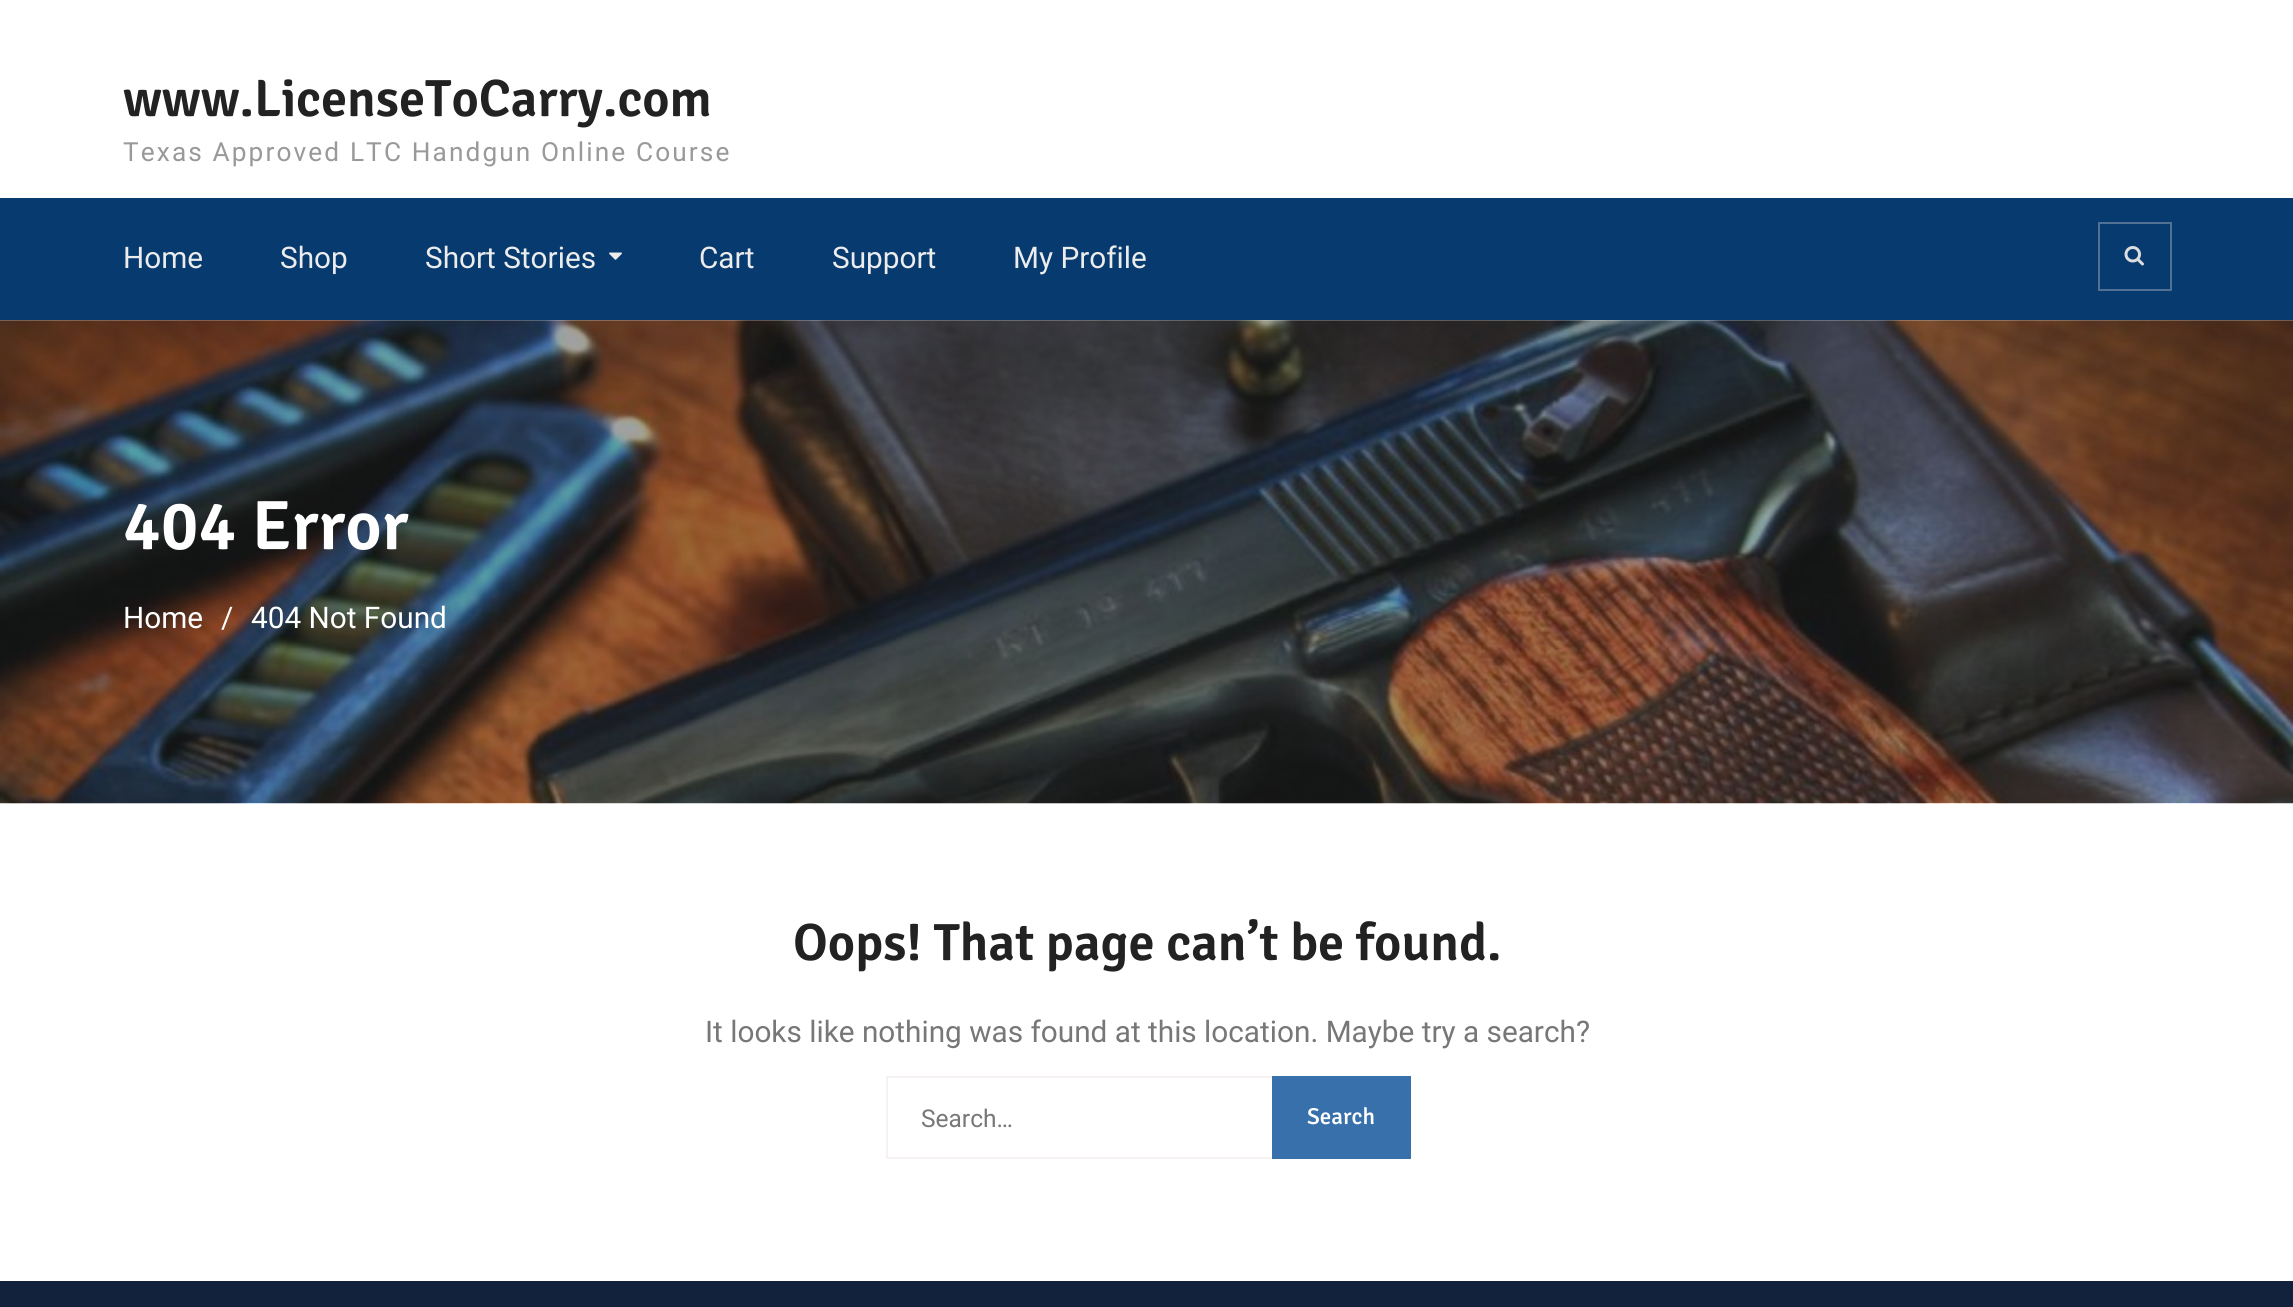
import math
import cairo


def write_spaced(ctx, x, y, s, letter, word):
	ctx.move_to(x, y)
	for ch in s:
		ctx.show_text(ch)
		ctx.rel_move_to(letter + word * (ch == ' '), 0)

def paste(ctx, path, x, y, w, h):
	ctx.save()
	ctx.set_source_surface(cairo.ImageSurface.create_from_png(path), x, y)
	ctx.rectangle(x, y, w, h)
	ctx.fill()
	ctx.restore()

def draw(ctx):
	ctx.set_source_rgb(1, 1, 1)
	ctx.paint()
	ctx.select_font_face('Signika SemiBold')
	ctx.set_font_size(52.5)
	ctx.set_source_rgb(0.133, 0.133, 0.133)
	ctx.move_to(123, 116)
	ctx.show_text('www.LicenseToCarry.com')
	ctx.select_font_face('Roboto')
	ctx.set_font_size(26.25)
	ctx.set_source_rgb(0.6, 0.6, 0.6)
	write_spaced(ctx, 123, 161, 'Texas Approved LTC Handgun Online Course', 2.1, 0)
	ctx.set_source_rgb(0.031, 0.227, 0.435)
	ctx.rectangle(0, 198, 2293, 122)
	ctx.fill()
	ctx.set_font_size(29.75)
	ctx.set_source_rgb(0.925, 0.925, 0.925)
	for x, y, s in [
		(123, 268, 'Home'),
		(280, 268, 'Shop'),
		(425, 268, 'Short Stories'),
	]:
		ctx.move_to(x, y)
		ctx.show_text(s)
	paste(ctx, 'media/1.png', 609, 252, 13, 8)
	for x, y, s in [
		(699, 268, 'Cart'),
		(832, 268, 'Support'),
		(1013, 268, 'My Profile'),
	]:
		ctx.move_to(x, y)
		ctx.show_text(s)
	ctx.rectangle(2099, 223, 72, 67)
	ctx.set_source_rgb(0.314, 0.443, 0.58)
	ctx.stroke()
	paste(ctx, 'media/2.png', 2124, 246, 20, 20)
	paste(ctx, 'media/3.png', 0, 320, 2293, 484)
	ctx.select_font_face('Signika SemiBold')
	ctx.set_font_size(70)
	ctx.set_source_rgb(1, 1, 1)
	ctx.move_to(123, 549)
	ctx.show_text('404 Error')
	ctx.select_font_face('Roboto')
	ctx.set_font_size(29.75)
	for x, y, s in [
		(123, 628, 'Home'),
		(221, 628, '/'),
		(251, 628, '404 Not Found'),
	]:
		ctx.move_to(x, y)
		ctx.show_text(s)
	ctx.select_font_face('Signika SemiBold')
	ctx.set_font_size(52.5)
	ctx.set_source_rgb(0.133, 0.133, 0.133)
	ctx.move_to(793, 960)
	ctx.show_text('Oops! That page can’t be found.')
	ctx.select_font_face('Roboto')
	ctx.set_font_size(29.75)
	ctx.set_source_rgb(0.467, 0.467, 0.467)
	ctx.move_to(705, 1042)
	ctx.show_text('It looks like nothing was found at this location. Maybe try a search?')
	ctx.rectangle(887, 1077, 523, 81)
	ctx.set_source_rgb(0.961, 0.949, 0.949)
	ctx.stroke()
	ctx.set_font_size(24.5)
	ctx.set_source_rgb(0.467, 0.467, 0.467)
	ctx.move_to(921, 1127)
	ctx.show_text('Search…')
	ctx.set_source_rgb(0.216, 0.439, 0.671)
	ctx.rectangle(1272, 1076, 139, 83)
	ctx.fill()
	ctx.select_font_face('Signika Medium')
	ctx.set_font_size(23)
	ctx.set_source_rgb(1, 1, 1)
	ctx.move_to(1307, 1124)
	ctx.show_text('Search')
	ctx.set_source_rgb(0.071, 0.133, 0.239)
	ctx.rectangle(0, 1281, 2293, 26)
	ctx.fill()


surface = cairo.ImageSurface(cairo.FORMAT_RGB24, 2293, 1307)
ctx = cairo.Context(surface)
options = cairo.FontOptions()
options.set_hint_metrics(cairo.HINT_METRICS_OFF)
options.set_hint_style(cairo.HINT_STYLE_NONE)
ctx.set_font_options(options)
ctx.set_miter_limit(4)
draw(ctx)
surface.write_to_png('image.png')
